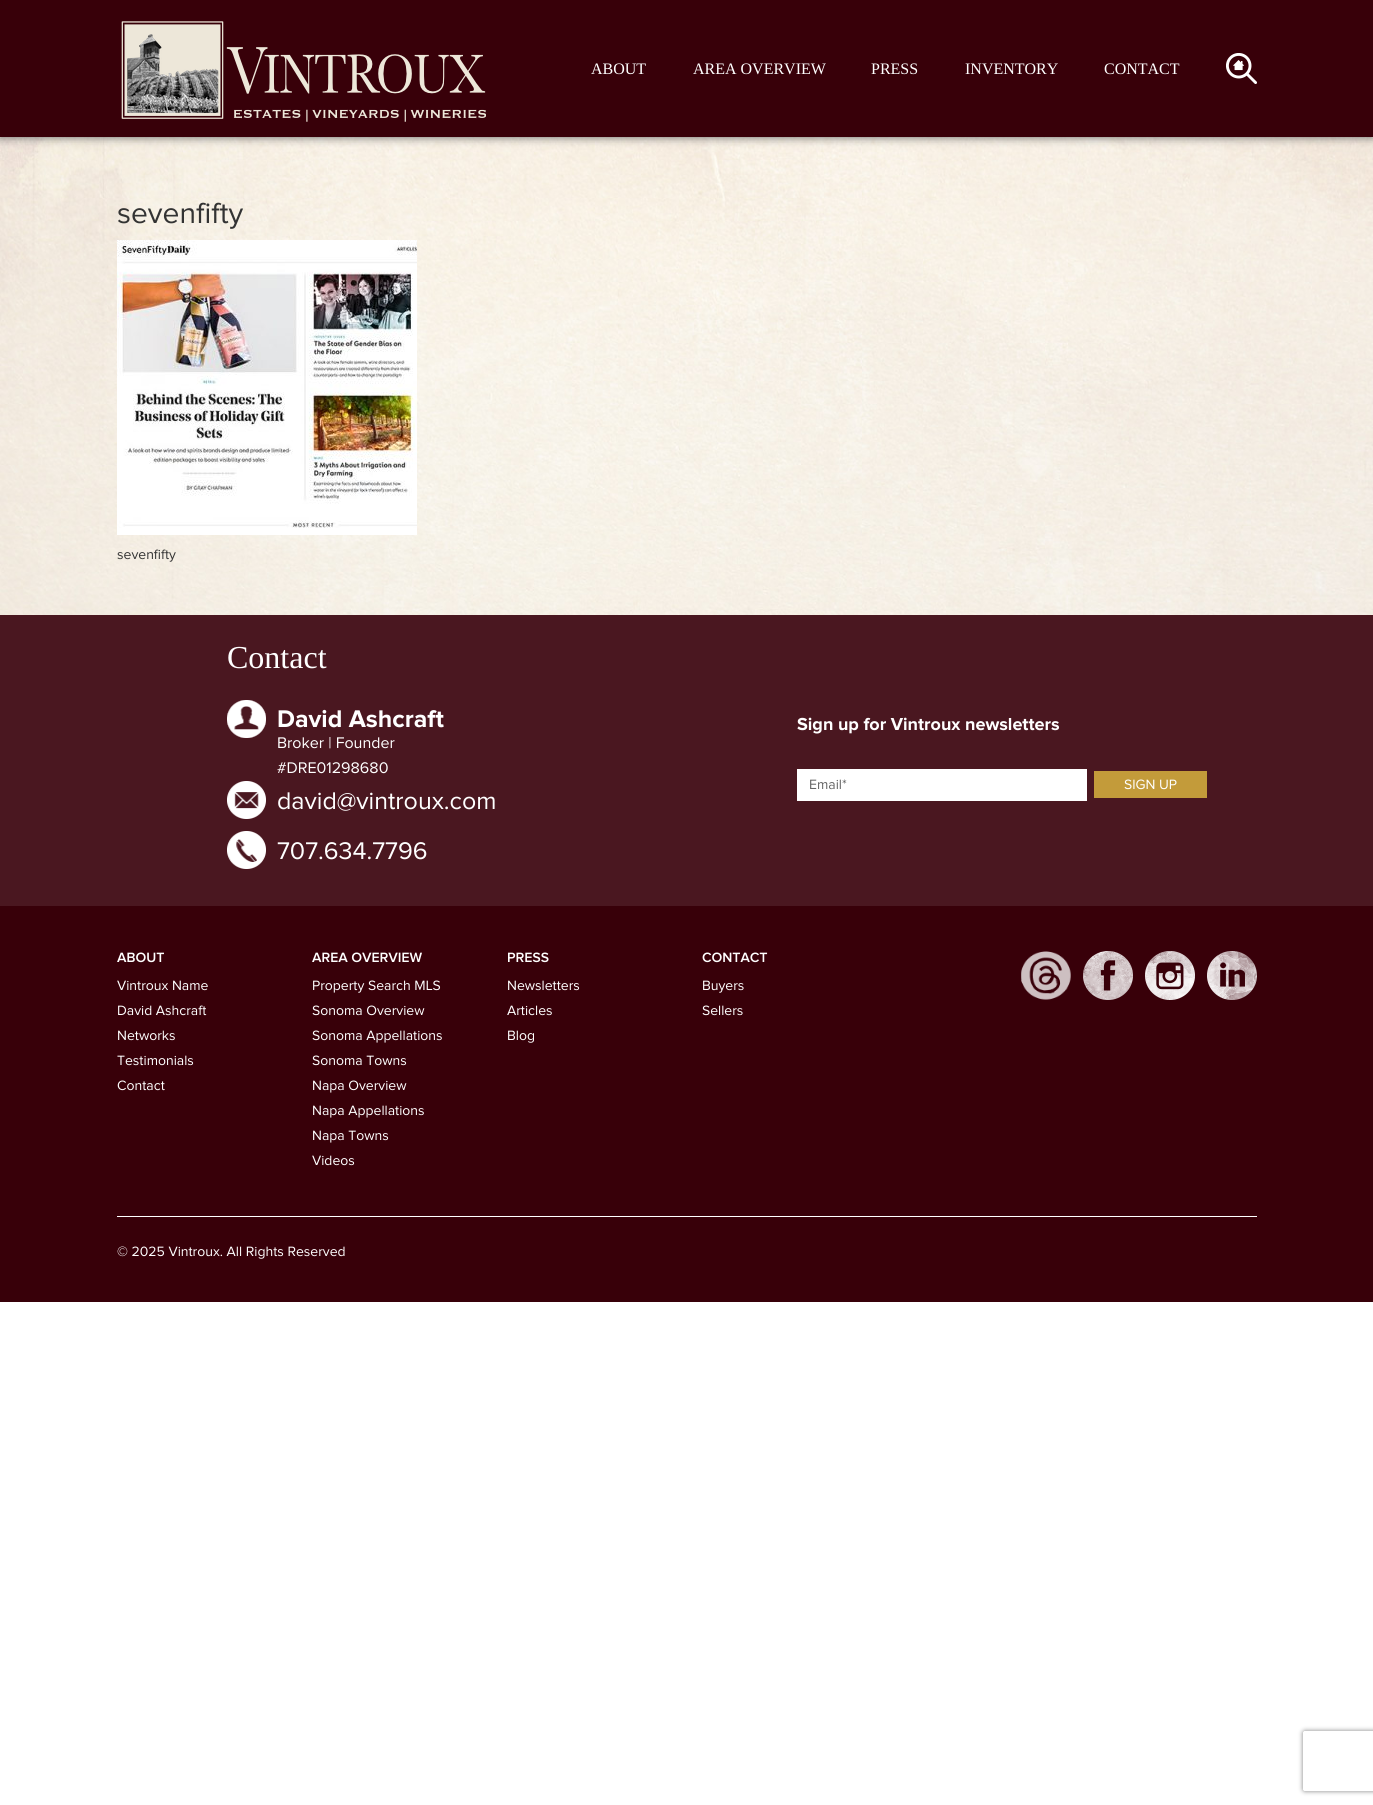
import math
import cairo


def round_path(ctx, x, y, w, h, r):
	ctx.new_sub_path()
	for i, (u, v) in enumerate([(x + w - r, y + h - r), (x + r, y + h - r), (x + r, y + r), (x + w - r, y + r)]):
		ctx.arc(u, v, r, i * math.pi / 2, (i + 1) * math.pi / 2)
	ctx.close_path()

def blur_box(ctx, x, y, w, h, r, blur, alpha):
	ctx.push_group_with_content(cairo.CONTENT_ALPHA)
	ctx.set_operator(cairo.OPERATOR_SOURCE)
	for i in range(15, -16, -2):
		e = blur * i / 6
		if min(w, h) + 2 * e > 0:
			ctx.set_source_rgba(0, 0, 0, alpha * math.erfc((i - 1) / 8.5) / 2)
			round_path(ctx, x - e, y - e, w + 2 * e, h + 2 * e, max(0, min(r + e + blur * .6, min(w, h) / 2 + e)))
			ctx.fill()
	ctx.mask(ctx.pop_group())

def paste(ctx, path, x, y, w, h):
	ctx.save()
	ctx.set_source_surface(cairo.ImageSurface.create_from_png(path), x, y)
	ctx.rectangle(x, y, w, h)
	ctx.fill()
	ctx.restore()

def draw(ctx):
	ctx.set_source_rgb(1, 1, 1)
	ctx.paint()
	paste(ctx, 'media/3.png', 0, 137, 1373, 478)
	ctx.set_source_rgb(0.388, 0.388, 0.388)
	blur_box(ctx, 0, 0, 1373, 137, 0, 5, 1)
	ctx.set_source_rgb(0.22, 0, 0.039)
	ctx.rectangle(0, 0, 1373, 137)
	ctx.fill()
	paste(ctx, 'media/1.png', 121, 21, 365, 101)
	ctx.select_font_face('Liberation Serif')
	ctx.set_font_size(16)
	ctx.set_source_rgb(1, 1, 1)
	for x, y, s in [
		(591, 74, 'ABOUT'),
		(693, 74, 'AREA OVERVIEW'),
		(871, 74, 'PRESS'),
		(965, 74, 'INVENTORY'),
		(1104, 74, 'CONTACT'),
	]:
		ctx.move_to(x, y)
		ctx.show_text(s)
	paste(ctx, 'media/2.png', 1226, 53, 31, 31)
	ctx.select_font_face('Proxima Nova')
	ctx.set_font_size(30)
	ctx.set_source_rgb(0.2, 0.2, 0.2)
	ctx.move_to(117, 223)
	ctx.show_text('sevenfifty')
	paste(ctx, 'media/4.png', 117, 240, 300, 295)
	ctx.set_font_size(14)
	ctx.move_to(117, 559)
	ctx.show_text('sevenfifty')
	ctx.set_source_rgb(0.22, 0, 0.039)
	ctx.rectangle(0, 906, 1373, 396)
	ctx.fill()
	ctx.set_source_rgb(0.29, 0.09, 0.125)
	ctx.rectangle(0, 615, 1373, 291)
	ctx.fill()
	ctx.select_font_face('Liberation Serif')
	ctx.set_font_size(32)
	ctx.set_source_rgb(1, 1, 1)
	ctx.move_to(227, 668)
	ctx.show_text('Contact')
	paste(ctx, 'media/5.png', 227, 700, 39, 38)
	ctx.select_font_face('Proxima Nova', cairo.FONT_SLANT_NORMAL, cairo.FONT_WEIGHT_BOLD)
	ctx.set_font_size(25)
	ctx.move_to(277, 727)
	ctx.show_text('David Ashcraft')
	ctx.select_font_face('Proxima Nova')
	ctx.set_font_size(16)
	ctx.move_to(277, 748)
	ctx.show_text('Broker | Founder')
	ctx.move_to(277, 773)
	ctx.show_text('#DRE01298680')
	paste(ctx, 'media/6.png', 227, 781, 39, 38)
	ctx.set_font_size(25)
	ctx.move_to(277, 809)
	ctx.show_text('david@vintroux.com')
	paste(ctx, 'media/7.png', 227, 831, 39, 38)
	ctx.move_to(277, 859)
	ctx.show_text('707.634.7796')
	ctx.select_font_face('Proxima Nova', cairo.FONT_SLANT_NORMAL, cairo.FONT_WEIGHT_BOLD)
	ctx.set_font_size(18)
	ctx.move_to(797, 730)
	ctx.show_text('Sign up for Vintroux newsletters')
	ctx.rectangle(797, 769, 290, 32)
	ctx.fill()
	ctx.select_font_face('Proxima Nova')
	ctx.set_font_size(14)
	ctx.set_source_rgb(0.392, 0.392, 0.392)
	ctx.move_to(809, 789)
	ctx.show_text('Email*')
	ctx.set_source_rgb(0.765, 0.608, 0.227)
	ctx.rectangle(1094, 771, 113, 27)
	ctx.fill()
	ctx.set_source_rgb(1, 1, 1)
	ctx.move_to(1124, 789)
	ctx.show_text('SIGN UP')
	paste(ctx, 'media/8.png', 117, 952, 47, 11)
	for x, y, s in [
		(117, 990, 'Vintroux Name'),
		(117, 1015, 'David Ashcraft'),
		(117, 1040, 'Networks'),
		(117, 1065, 'Testimonials'),
		(117, 1090, 'Contact'),
	]:
		ctx.move_to(x, y)
		ctx.show_text(s)
	paste(ctx, 'media/9.png', 312, 952, 110, 11)
	for x, y, s in [
		(312, 990, 'Property Search MLS'),
		(312, 1015, 'Sonoma Overview'),
		(312, 1040, 'Sonoma Appellations'),
		(312, 1065, 'Sonoma Towns'),
		(312, 1090, 'Napa Overview'),
		(312, 1115, 'Napa Appellations'),
		(312, 1140, 'Napa Towns'),
		(312, 1165, 'Videos'),
	]:
		ctx.move_to(x, y)
		ctx.show_text(s)
	paste(ctx, 'media/10.png', 508, 952, 41, 11)
	for x, y, s in [
		(507, 990, 'Newsletters'),
		(507, 1015, 'Articles'),
		(507, 1040, 'Blog'),
	]:
		ctx.move_to(x, y)
		ctx.show_text(s)
	paste(ctx, 'media/11.png', 702, 952, 66, 11)
	ctx.move_to(702, 990)
	ctx.show_text('Buyers')
	ctx.move_to(702, 1015)
	ctx.show_text('Sellers')
	paste(ctx, 'media/12.png', 1021, 951, 50, 49)
	paste(ctx, 'media/13.png', 1083, 951, 50, 49)
	paste(ctx, 'media/14.png', 1145, 951, 50, 49)
	paste(ctx, 'media/15.png', 1207, 951, 50, 49)
	ctx.rectangle(117, 1216, 1140, 1)
	ctx.fill()
	ctx.move_to(117, 1256)
	ctx.show_text('© 2025 Vintroux. All Rights Reserved')
	ctx.save()
	ctx.set_fill_rule(cairo.FILL_RULE_EVEN_ODD)
	ctx.new_path()
	ctx.move_to(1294, 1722)
	ctx.line_to(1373, 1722)
	ctx.line_to(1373, 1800)
	ctx.line_to(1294, 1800)
	ctx.close_path()
	ctx.move_to(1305, 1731)
	ctx.line_to(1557, 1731)
	ctx.curve_to(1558, 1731, 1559, 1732, 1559, 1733)
	ctx.line_to(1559, 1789)
	ctx.curve_to(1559, 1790, 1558, 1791, 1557, 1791)
	ctx.line_to(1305, 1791)
	ctx.curve_to(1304, 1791, 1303, 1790, 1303, 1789)
	ctx.line_to(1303, 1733)
	ctx.curve_to(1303, 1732, 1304, 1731, 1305, 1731)
	ctx.close_path()
	ctx.clip()
	ctx.set_source_rgb(0.502, 0.502, 0.502)
	blur_box(ctx, 1303, 1731, 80, 60, 2, 2.5, 1)
	ctx.restore()


surface = cairo.ImageSurface(cairo.FORMAT_RGB24, 1373, 1805)
ctx = cairo.Context(surface)
options = cairo.FontOptions()
options.set_hint_metrics(cairo.HINT_METRICS_OFF)
options.set_hint_style(cairo.HINT_STYLE_NONE)
ctx.set_font_options(options)
ctx.set_miter_limit(4)
draw(ctx)
surface.write_to_png('image.png')
